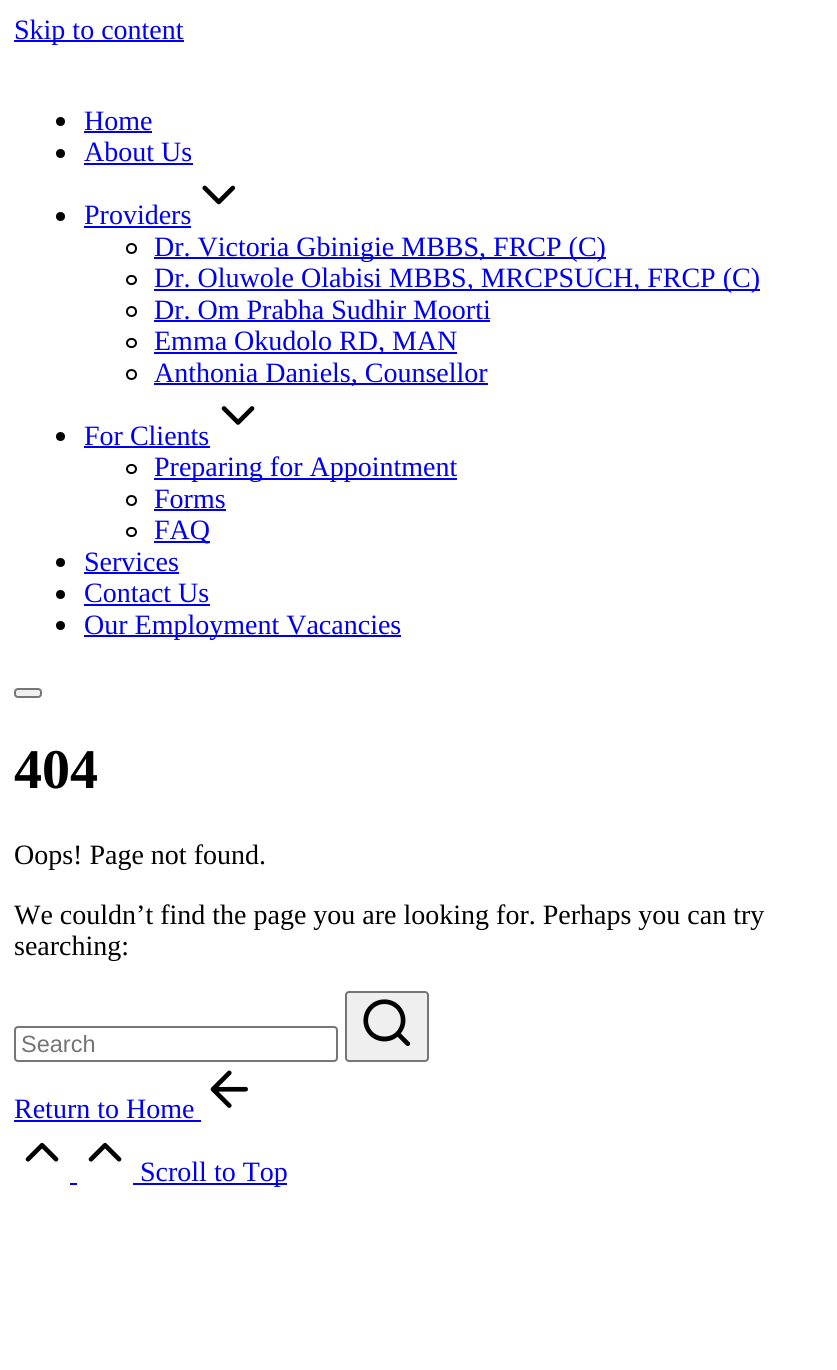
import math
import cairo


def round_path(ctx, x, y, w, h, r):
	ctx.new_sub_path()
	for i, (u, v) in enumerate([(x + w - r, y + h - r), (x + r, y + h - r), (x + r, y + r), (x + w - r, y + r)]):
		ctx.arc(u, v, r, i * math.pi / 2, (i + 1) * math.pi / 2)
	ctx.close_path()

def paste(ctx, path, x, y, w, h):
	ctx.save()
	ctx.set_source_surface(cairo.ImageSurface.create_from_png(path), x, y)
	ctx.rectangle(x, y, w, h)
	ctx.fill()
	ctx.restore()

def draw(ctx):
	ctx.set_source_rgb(1, 1, 1)
	ctx.paint()
	ctx.set_source_rgb(0, 0, 0.933)
	ctx.rectangle(14, 40, 170, 2)
	ctx.fill()
	ctx.select_font_face('Liberation Serif')
	ctx.set_font_size(28)
	ctx.move_to(14, 39)
	ctx.show_text('Skip to content')
	ctx.set_source_rgb(0, 0, 0)
	ctx.new_path()
	ctx.arc(60.5, 121.5, 4.5, 0, 2 * math.pi)
	ctx.fill()
	ctx.set_source_rgb(0, 0, 0.933)
	ctx.move_to(84, 130)
	ctx.show_text('Home')
	ctx.rectangle(84, 131, 68, 2)
	ctx.fill()
	ctx.set_source_rgb(0, 0, 0)
	ctx.arc(60.5, 153.5, 4.5, 0, 2 * math.pi)
	ctx.fill()
	ctx.set_source_rgb(0, 0, 0.933)
	ctx.move_to(84, 161)
	ctx.show_text('About Us')
	ctx.rectangle(84, 163, 109, 2)
	ctx.fill()
	paste(ctx, 'media/1.png', 202, 185, 34, 20)
	ctx.set_source_rgb(0, 0, 0)
	ctx.arc(60.5, 216.5, 4.5, 0, 2 * math.pi)
	ctx.fill()
	ctx.set_source_rgb(0, 0, 0.933)
	ctx.move_to(84, 224)
	ctx.show_text('Providers')
	ctx.rectangle(84, 226, 107, 2)
	ctx.fill()
	ctx.arc(131.5, 248.5, 4.5, 0, 2 * math.pi)
	ctx.set_source_rgb(0, 0, 0)
	ctx.stroke()
	ctx.set_source_rgb(0, 0, 0.933)
	ctx.rectangle(154, 257, 452, 2)
	ctx.fill()
	ctx.move_to(154, 256)
	ctx.show_text('Dr. Victoria Gbinigie MBBS, FRCP (C)')
	round_path(ctx, 127, 276, 9, 8, 4)
	ctx.set_source_rgb(0, 0, 0)
	ctx.stroke()
	ctx.set_source_rgb(0, 0, 0.933)
	ctx.rectangle(154, 289, 606, 2)
	ctx.fill()
	ctx.move_to(154, 287)
	ctx.show_text('Dr. Oluwole Olabisi MBBS, MRCPSUCH, FRCP (C)')
	ctx.new_path()
	ctx.arc(131.5, 311.5, 4.5, 0, 2 * math.pi)
	ctx.set_source_rgb(0, 0, 0)
	ctx.stroke()
	ctx.set_source_rgb(0, 0, 0.933)
	ctx.move_to(154, 319)
	ctx.show_text('Dr. Om Prabha Sudhir Moorti')
	ctx.rectangle(154, 320, 336, 2)
	ctx.fill()
	round_path(ctx, 127, 339, 9, 8, 4)
	ctx.set_source_rgb(0, 0, 0)
	ctx.stroke()
	ctx.set_source_rgb(0, 0, 0.933)
	ctx.rectangle(154, 352, 303, 2)
	ctx.fill()
	ctx.move_to(154, 350)
	ctx.show_text('Emma Okudolo RD, MAN')
	ctx.new_path()
	ctx.arc(131.5, 374.5, 4.5, 0, 2 * math.pi)
	ctx.set_source_rgb(0, 0, 0)
	ctx.stroke()
	ctx.set_source_rgb(0, 0, 0.933)
	ctx.rectangle(154, 383, 334, 2)
	ctx.fill()
	ctx.move_to(154, 382)
	ctx.show_text('Anthonia Daniels, Counsellor')
	paste(ctx, 'media/2.png', 221, 406, 34, 19)
	ctx.set_source_rgb(0, 0, 0)
	ctx.arc(60.5, 436.5, 4.5, 0, 2 * math.pi)
	ctx.fill()
	ctx.set_source_rgb(0, 0, 0.933)
	ctx.move_to(84, 445)
	ctx.show_text('For Clients')
	ctx.rectangle(84, 446, 126, 2)
	ctx.fill()
	round_path(ctx, 127, 465, 9, 8, 4)
	ctx.set_source_rgb(0, 0, 0)
	ctx.stroke()
	ctx.set_source_rgb(0, 0, 0.933)
	ctx.rectangle(154, 478, 303, 2)
	ctx.fill()
	ctx.move_to(154, 476)
	ctx.show_text('Preparing for Appointment')
	ctx.new_path()
	ctx.arc(131.5, 500.5, 4.5, 0, 2 * math.pi)
	ctx.set_source_rgb(0, 0, 0)
	ctx.stroke()
	ctx.set_source_rgb(0, 0, 0.933)
	ctx.move_to(154, 508)
	ctx.show_text('Forms')
	ctx.rectangle(154, 509, 72, 2)
	ctx.fill()
	round_path(ctx, 127, 528, 9, 8, 4)
	ctx.set_source_rgb(0, 0, 0)
	ctx.stroke()
	ctx.set_source_rgb(0, 0, 0.933)
	ctx.rectangle(154, 541, 56, 2)
	ctx.fill()
	ctx.move_to(154, 539)
	ctx.show_text('FAQ')
	ctx.set_source_rgb(0, 0, 0)
	ctx.new_path()
	ctx.arc(60.5, 562.5, 4.5, 0, 2 * math.pi)
	ctx.fill()
	ctx.set_source_rgb(0, 0, 0.933)
	ctx.move_to(84, 571)
	ctx.show_text('Services')
	ctx.rectangle(84, 572, 95, 2)
	ctx.fill()
	ctx.set_source_rgb(0, 0, 0)
	ctx.arc(60.5, 594.5, 4.5, 0, 2 * math.pi)
	ctx.fill()
	ctx.set_source_rgb(0, 0, 0.933)
	ctx.move_to(84, 602)
	ctx.show_text('Contact Us')
	ctx.rectangle(84, 604, 126, 2)
	ctx.fill()
	ctx.set_source_rgb(0, 0, 0)
	ctx.arc(60.5, 625.5, 4.5, 0, 2 * math.pi)
	ctx.fill()
	ctx.set_source_rgb(0, 0, 0.933)
	ctx.rectangle(84, 635, 317, 2)
	ctx.fill()
	ctx.move_to(84, 634)
	ctx.show_text('Our Employment Vacancies')
	ctx.set_source_rgb(0.937, 0.937, 0.937)
	round_path(ctx, 15, 689, 26, 8, 3)
	ctx.fill_preserve()
	ctx.set_source_rgb(0.463, 0.463, 0.463)
	ctx.stroke()
	ctx.select_font_face('Liberation Serif', cairo.FONT_SLANT_NORMAL, cairo.FONT_WEIGHT_BOLD)
	ctx.set_font_size(56)
	ctx.set_source_rgb(0, 0, 0)
	ctx.move_to(14, 788)
	ctx.show_text('404')
	ctx.select_font_face('Liberation Serif')
	ctx.set_font_size(28)
	for x, y, s in [
		(14, 864, 'Oops! Page not found.'),
		(14, 924, 'We couldn’t find the page you are looking for. Perhaps you can try'),
		(14, 955, 'searching:'),
	]:
		ctx.move_to(x, y)
		ctx.show_text(s)
	round_path(ctx, 15, 1027, 322, 34, 3)
	ctx.set_source_rgb(0.463, 0.463, 0.463)
	ctx.stroke()
	ctx.select_font_face('Liberation Sans')
	ctx.set_font_size(23.5)
	ctx.set_source_rgb(0.459, 0.459, 0.459)
	ctx.move_to(21, 1052)
	ctx.show_text('Search')
	ctx.set_source_rgb(0.937, 0.937, 0.937)
	round_path(ctx, 346, 992, 82, 69, 3)
	ctx.fill_preserve()
	ctx.set_source_rgb(0.463, 0.463, 0.463)
	ctx.stroke()
	paste(ctx, 'media/3.png', 363, 999, 48, 48)
	ctx.select_font_face('Liberation Serif')
	ctx.set_font_size(28)
	ctx.set_source_rgb(0, 0, 0.933)
	ctx.move_to(14, 1118)
	ctx.show_text('Return to Home')
	ctx.rectangle(14, 1120, 187, 2)
	ctx.fill()
	paste(ctx, 'media/4.png', 210, 1070, 38, 38)
	paste(ctx, 'media/5.png', 25, 1142, 34, 20)
	paste(ctx, 'media/5.png', 88, 1142, 34, 20)
	ctx.rectangle(133, 1183, 154, 2)
	ctx.fill()
	ctx.move_to(140, 1181)
	ctx.show_text('Scroll to Top')
	ctx.rectangle(70, 1183, 7, 2)
	ctx.fill()


surface = cairo.ImageSurface(cairo.FORMAT_RGB24, 837, 1370)
ctx = cairo.Context(surface)
options = cairo.FontOptions()
options.set_hint_metrics(cairo.HINT_METRICS_OFF)
options.set_hint_style(cairo.HINT_STYLE_NONE)
ctx.set_font_options(options)
ctx.set_miter_limit(4)
draw(ctx)
surface.write_to_png('image.png')
